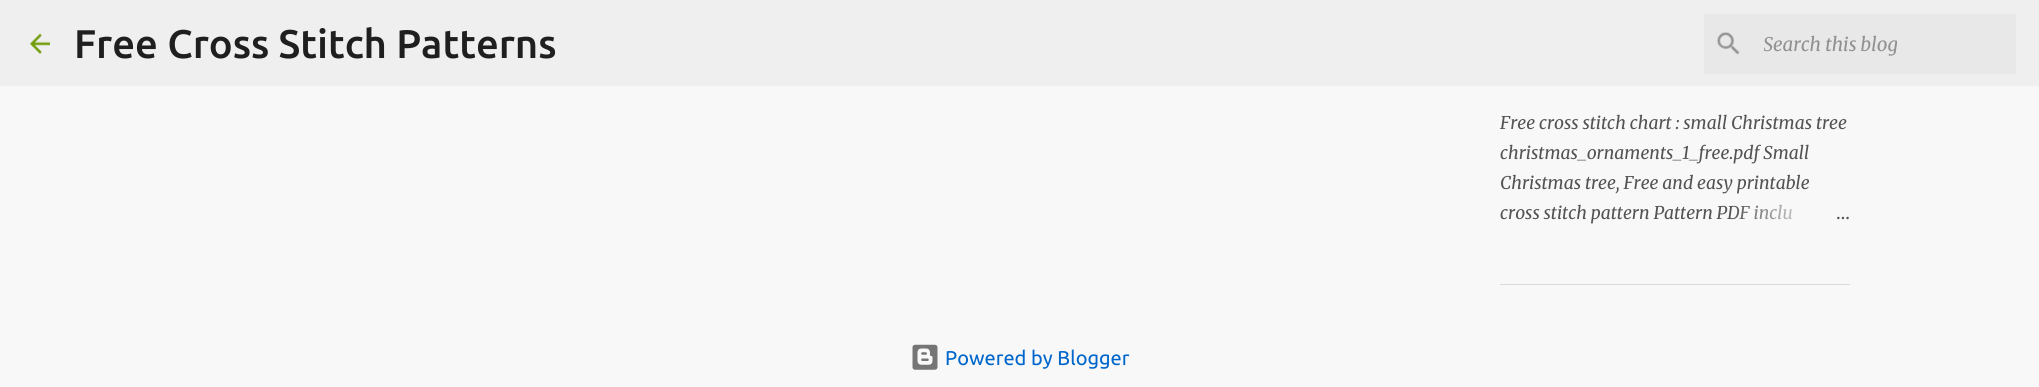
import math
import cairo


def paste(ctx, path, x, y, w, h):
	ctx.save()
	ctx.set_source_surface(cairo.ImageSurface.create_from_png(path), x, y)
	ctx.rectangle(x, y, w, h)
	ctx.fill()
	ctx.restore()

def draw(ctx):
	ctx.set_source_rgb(0.969, 0.969, 0.969)
	ctx.paint()
	ctx.set_source_rgb(0.937, 0.937, 0.937)
	ctx.rectangle(0, 0, 2039, 86)
	ctx.fill()
	paste(ctx, 'media/1.png', 30, 33, 20, 21)
	ctx.select_font_face('Ubuntu Medium')
	ctx.set_font_size(40)
	ctx.set_source_rgb(0.122, 0.122, 0.122)
	ctx.move_to(74, 58)
	ctx.show_text('Free Cross Stitch Patterns')
	ctx.set_source_rgb(0.91, 0.91, 0.91)
	ctx.rectangle(1704, 14, 312, 60)
	ctx.fill()
	paste(ctx, 'media/2.png', 1717, 32, 23, 23)
	ctx.save()
	ctx.rectangle(1764, 33, 242, 23)
	ctx.clip()
	ctx.select_font_face('Merriweather', cairo.FONT_SLANT_ITALIC)
	ctx.set_font_size(18.75)
	ctx.set_source_rgb(0.565, 0.565, 0.565)
	ctx.move_to(1763, 51)
	ctx.show_text('Search this blog')
	ctx.restore()
	ctx.select_font_face('Merriweather', cairo.FONT_SLANT_ITALIC)
	ctx.set_font_size(17.5)
	ctx.set_source_rgb(0.325, 0.325, 0.325)
	for x, y, s in [
		(1500, 129, 'Free cross stitch chart : small Christmas tree'),
		(1500, 159, 'christmas_ornaments_1_free.pdf Small'),
		(1500, 189, 'Christmas tree, Free and easy printable'),
		(1500, 219, 'cross stitch pattern Pattern PDF inclu'),
	]:
		ctx.move_to(x, y)
		ctx.show_text(s)
	gradient = cairo.LinearGradient(1850, 213, 1730, 213)
	gradient.add_color_stop_rgba(0, 0.969, 0.969, 0.969, 1)
	gradient.add_color_stop_rgba(0.2, 0.969, 0.969, 0.969, 1)
	gradient.add_color_stop_rgba(1, 0.969, 0.969, 0.969, 0)
	ctx.set_source(gradient)
	ctx.rectangle(1732, 204, 60, 16)
	ctx.fill()
	ctx.select_font_face('Merriweather')
	ctx.set_source_rgb(0.325, 0.325, 0.325)
	ctx.move_to(1836, 219)
	ctx.show_text('…')
	ctx.set_source_rgb(0.851, 0.851, 0.851)
	ctx.rectangle(1500, 284, 350, 1)
	ctx.fill()
	paste(ctx, 'media/3.png', 912, 344, 26, 26)
	ctx.select_font_face('Ubuntu')
	ctx.set_font_size(20)
	ctx.set_source_rgb(0, 0.4, 0.8)
	ctx.move_to(945, 365)
	ctx.show_text('Powered by Blogger')


surface = cairo.ImageSurface(cairo.FORMAT_RGB24, 2039, 387)
ctx = cairo.Context(surface)
options = cairo.FontOptions()
options.set_hint_metrics(cairo.HINT_METRICS_OFF)
options.set_hint_style(cairo.HINT_STYLE_NONE)
ctx.set_font_options(options)
ctx.set_miter_limit(4)
draw(ctx)
surface.write_to_png('image.png')
